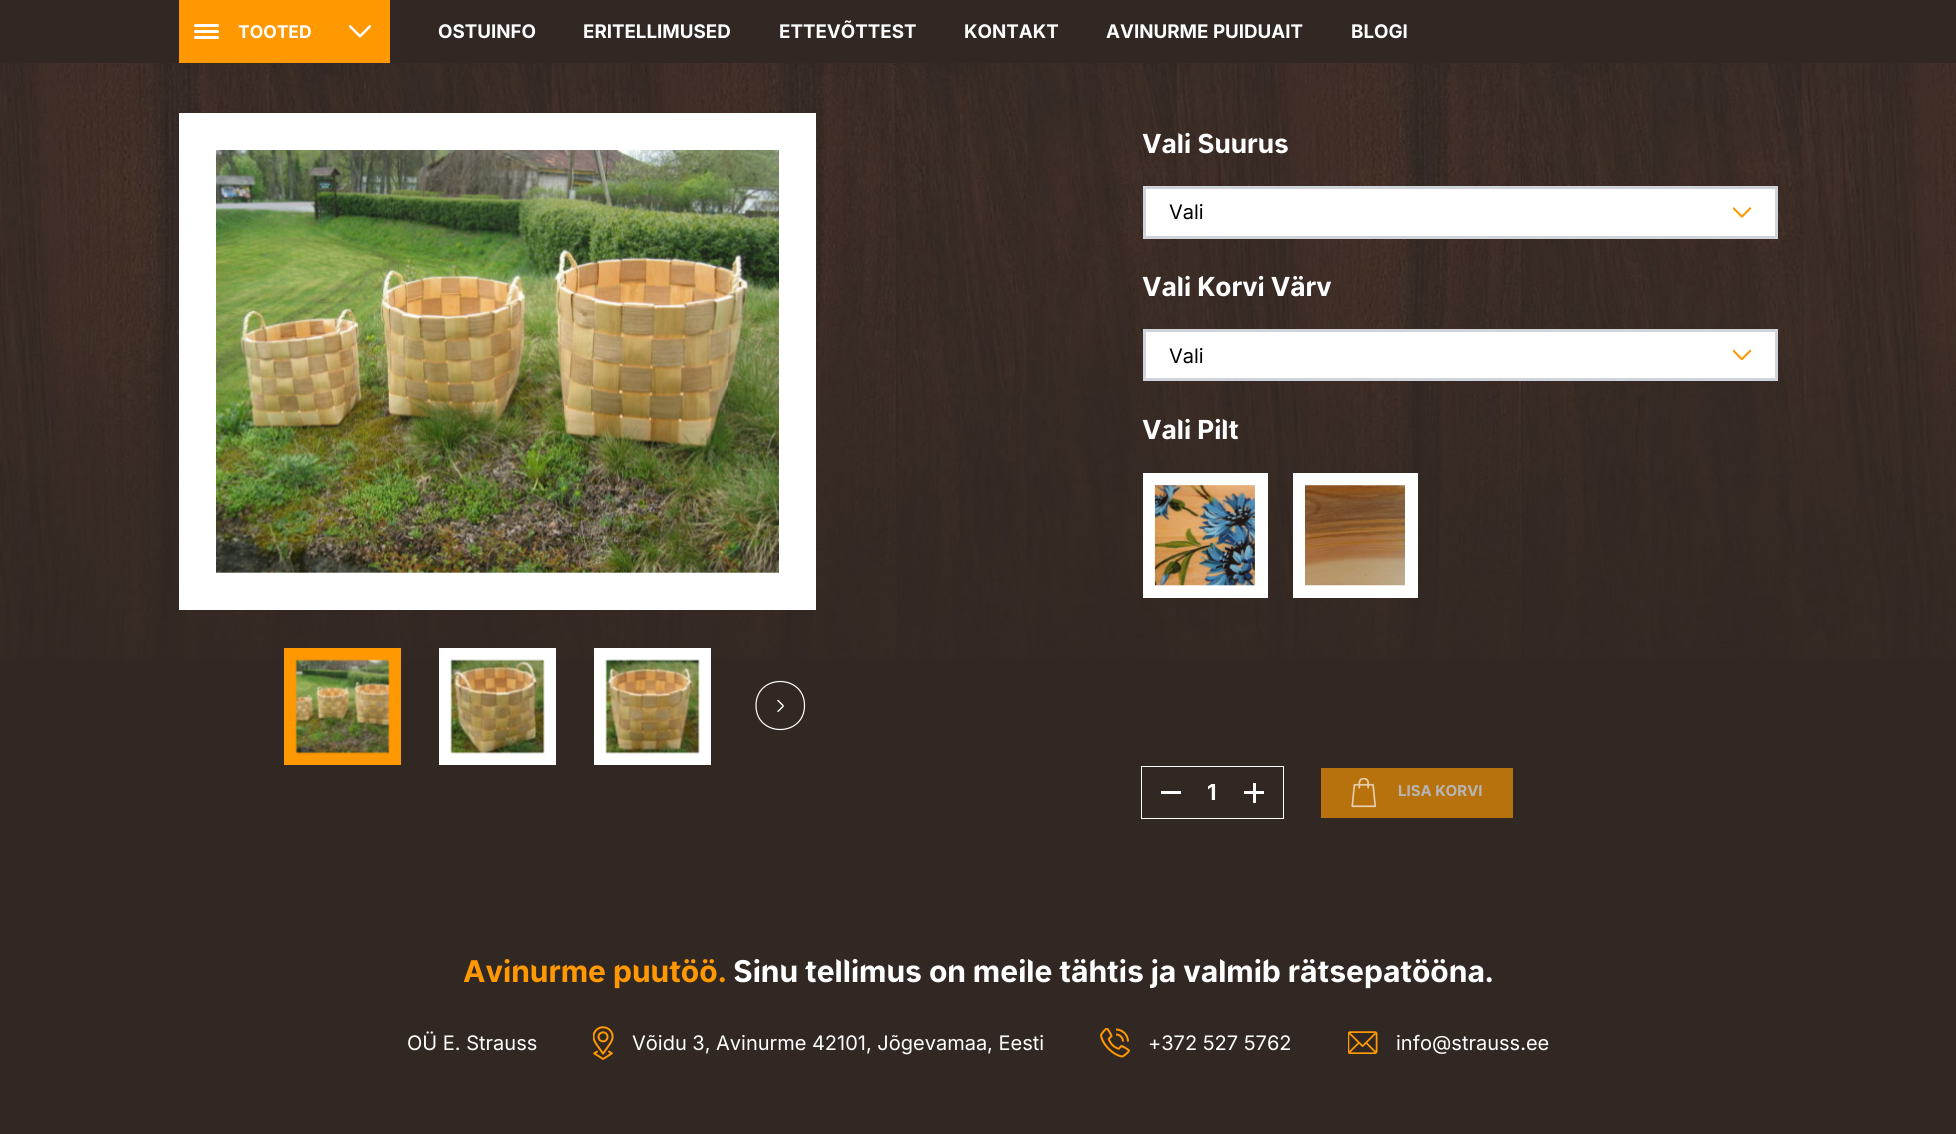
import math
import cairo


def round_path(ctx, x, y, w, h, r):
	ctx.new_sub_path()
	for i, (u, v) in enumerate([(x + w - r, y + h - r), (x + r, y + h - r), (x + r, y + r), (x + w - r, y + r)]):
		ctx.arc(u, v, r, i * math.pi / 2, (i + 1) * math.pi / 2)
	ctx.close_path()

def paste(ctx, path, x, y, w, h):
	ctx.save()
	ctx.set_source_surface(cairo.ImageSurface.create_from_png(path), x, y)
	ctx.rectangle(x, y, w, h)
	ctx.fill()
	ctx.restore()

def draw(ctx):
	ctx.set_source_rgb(0.192, 0.157, 0.137)
	ctx.paint()
	paste(ctx, 'media/1.png', 0, 63, 1956, 596)
	ctx.set_source_rgb(1, 0.596, 0.004)
	ctx.rectangle(179, 0, 211, 63)
	ctx.fill()
	ctx.set_source_rgb(1, 1, 1)
	round_path(ctx, 194, 24, 25, 3, 1.5)
	ctx.fill()
	round_path(ctx, 194, 30, 25, 3, 1.5)
	ctx.fill()
	round_path(ctx, 194, 36, 25, 3, 1.5)
	ctx.fill()
	ctx.select_font_face('Inter', cairo.FONT_SLANT_NORMAL, cairo.FONT_WEIGHT_BOLD)
	ctx.set_font_size(17.5)
	ctx.move_to(238, 38)
	ctx.show_text('TOOTED')
	paste(ctx, 'media/2.png', 349, 25, 22, 13)
	ctx.set_font_size(18.75)
	for x, y, s in [
		(438, 38, 'OSTUINFO'),
		(583, 38, 'ERITELLIMUSED'),
		(779, 38, 'ETTEVÕTTEST'),
		(964, 38, 'KONTAKT'),
		(1106, 38, 'AVINURME PUIDUAIT'),
		(1351, 38, 'BLOGI'),
	]:
		ctx.move_to(x, y)
		ctx.show_text(s)
	ctx.rectangle(179, 113, 637, 497)
	ctx.fill()
	paste(ctx, 'media/3.png', 216, 150, 563, 423)
	ctx.rectangle(290.5, 654.5, 104, 104)
	ctx.set_source_rgb(1, 0.596, 0.004)
	ctx.set_line_width(13)
	ctx.stroke()
	paste(ctx, 'media/4.png', 295, 659, 95, 95)
	ctx.set_source_rgb(1, 1, 1)
	ctx.rectangle(439, 648, 117, 117)
	ctx.fill()
	paste(ctx, 'media/5.png', 450, 659, 95, 95)
	ctx.rectangle(594, 648, 117, 117)
	ctx.fill()
	paste(ctx, 'media/6.png', 605, 659, 95, 95)
	paste(ctx, 'media/7.png', 777, 699, 7, 13)
	ctx.new_path()
	ctx.move_to(756, 705.5)
	ctx.curve_to(756, 673.5, 804.5, 673.5, 804.5, 705.5)
	ctx.curve_to(804.5, 737.5, 756, 737.5, 756, 705.5)
	ctx.close_path()
	ctx.set_line_width(1.2)
	ctx.stroke()
	ctx.select_font_face('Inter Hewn', cairo.FONT_SLANT_NORMAL, cairo.FONT_WEIGHT_BOLD)
	ctx.set_font_size(26.25)
	ctx.move_to(1142, 153)
	ctx.show_text('Vali Suurus')
	ctx.rectangle(1146, 189, 629, 47)
	ctx.fill()
	paste(ctx, 'media/8.png', 1733, 207, 18, 11)
	ctx.rectangle(1144.5, 187.5, 632, 50)
	ctx.set_source_rgb(0.808, 0.831, 0.855)
	ctx.set_line_width(3)
	ctx.stroke()
	ctx.select_font_face('Inter')
	ctx.set_font_size(20)
	ctx.set_source_rgb(0, 0, 0)
	ctx.move_to(1169, 219)
	ctx.show_text('Vali')
	ctx.select_font_face('Inter Hewn', cairo.FONT_SLANT_NORMAL, cairo.FONT_WEIGHT_BOLD)
	ctx.set_font_size(26.25)
	ctx.set_source_rgb(1, 1, 1)
	ctx.move_to(1142, 296)
	ctx.show_text('Vali Korvi Värv')
	ctx.rectangle(1146, 332, 629, 46)
	ctx.fill()
	paste(ctx, 'media/9.png', 1733, 349, 18, 12)
	ctx.rectangle(1144.5, 330.5, 632, 49)
	ctx.set_source_rgb(0.808, 0.831, 0.855)
	ctx.stroke()
	ctx.select_font_face('Inter')
	ctx.set_font_size(20)
	ctx.set_source_rgb(0, 0, 0)
	ctx.move_to(1169, 363)
	ctx.show_text('Vali')
	ctx.select_font_face('Inter Hewn', cairo.FONT_SLANT_NORMAL, cairo.FONT_WEIGHT_BOLD)
	ctx.set_font_size(26.25)
	ctx.set_source_rgb(1, 1, 1)
	ctx.move_to(1142, 439)
	ctx.show_text('Vali Pilt')
	ctx.rectangle(1143, 473, 125, 125)
	ctx.fill()
	paste(ctx, 'media/10.png', 1154, 484, 101, 102)
	ctx.rectangle(1293, 473, 125, 125)
	ctx.fill()
	paste(ctx, 'media/11.png', 1305, 485, 100, 101)
	ctx.rectangle(1141.5, 766.5, 142, 52)
	ctx.set_line_width(1)
	ctx.stroke()
	ctx.rectangle(1161, 791, 20, 3)
	ctx.fill()
	ctx.select_font_face('Inter', cairo.FONT_SLANT_NORMAL, cairo.FONT_WEIGHT_BOLD)
	ctx.set_font_size(22)
	ctx.move_to(1207, 800)
	ctx.show_text('1')
	ctx.rectangle(1244, 791, 20, 3)
	ctx.rectangle(1253, 783, 3, 20)
	ctx.fill()
	ctx.set_source_rgb(0.718, 0.443, 0.051)
	ctx.rectangle(1321, 768, 192, 50)
	ctx.fill()
	paste(ctx, 'media/12.png', 1351, 778, 25, 30)
	ctx.select_font_face('Inter Hewn', cairo.FONT_SLANT_NORMAL, cairo.FONT_WEIGHT_BOLD)
	ctx.set_font_size(15)
	ctx.set_source_rgb(0.718, 0.706, 0.698)
	ctx.move_to(1398, 796)
	ctx.show_text('LISA KORVI')
	ctx.set_font_size(30)
	ctx.set_source_rgb(1, 0.596, 0.004)
	ctx.move_to(463, 982)
	ctx.show_text('Avinurme puutöö.')
	ctx.set_source_rgb(1, 1, 1)
	ctx.move_to(733, 982)
	ctx.show_text('Sinu tellimus on meile tähtis ja valmib rätsepatööna.')
	ctx.select_font_face('Inter')
	ctx.set_font_size(20)
	ctx.move_to(407, 1050)
	ctx.show_text('OÜ E. Strauss')
	paste(ctx, 'media/13.png', 593, 1026, 21, 34)
	ctx.move_to(632, 1050)
	ctx.show_text('Võidu 3, Avinurme 42101, Jõgevamaa, Eesti')
	paste(ctx, 'media/14.png', 1100, 1028, 30, 30)
	ctx.move_to(1148, 1050)
	ctx.show_text('+372 527 5762')
	paste(ctx, 'media/15.png', 1348, 1031, 30, 23)
	ctx.move_to(1396, 1050)
	ctx.show_text('info@strauss.ee')


surface = cairo.ImageSurface(cairo.FORMAT_RGB24, 1956, 1134)
ctx = cairo.Context(surface)
options = cairo.FontOptions()
options.set_hint_metrics(cairo.HINT_METRICS_OFF)
options.set_hint_style(cairo.HINT_STYLE_NONE)
ctx.set_font_options(options)
ctx.set_miter_limit(4)
draw(ctx)
surface.write_to_png('image.png')
